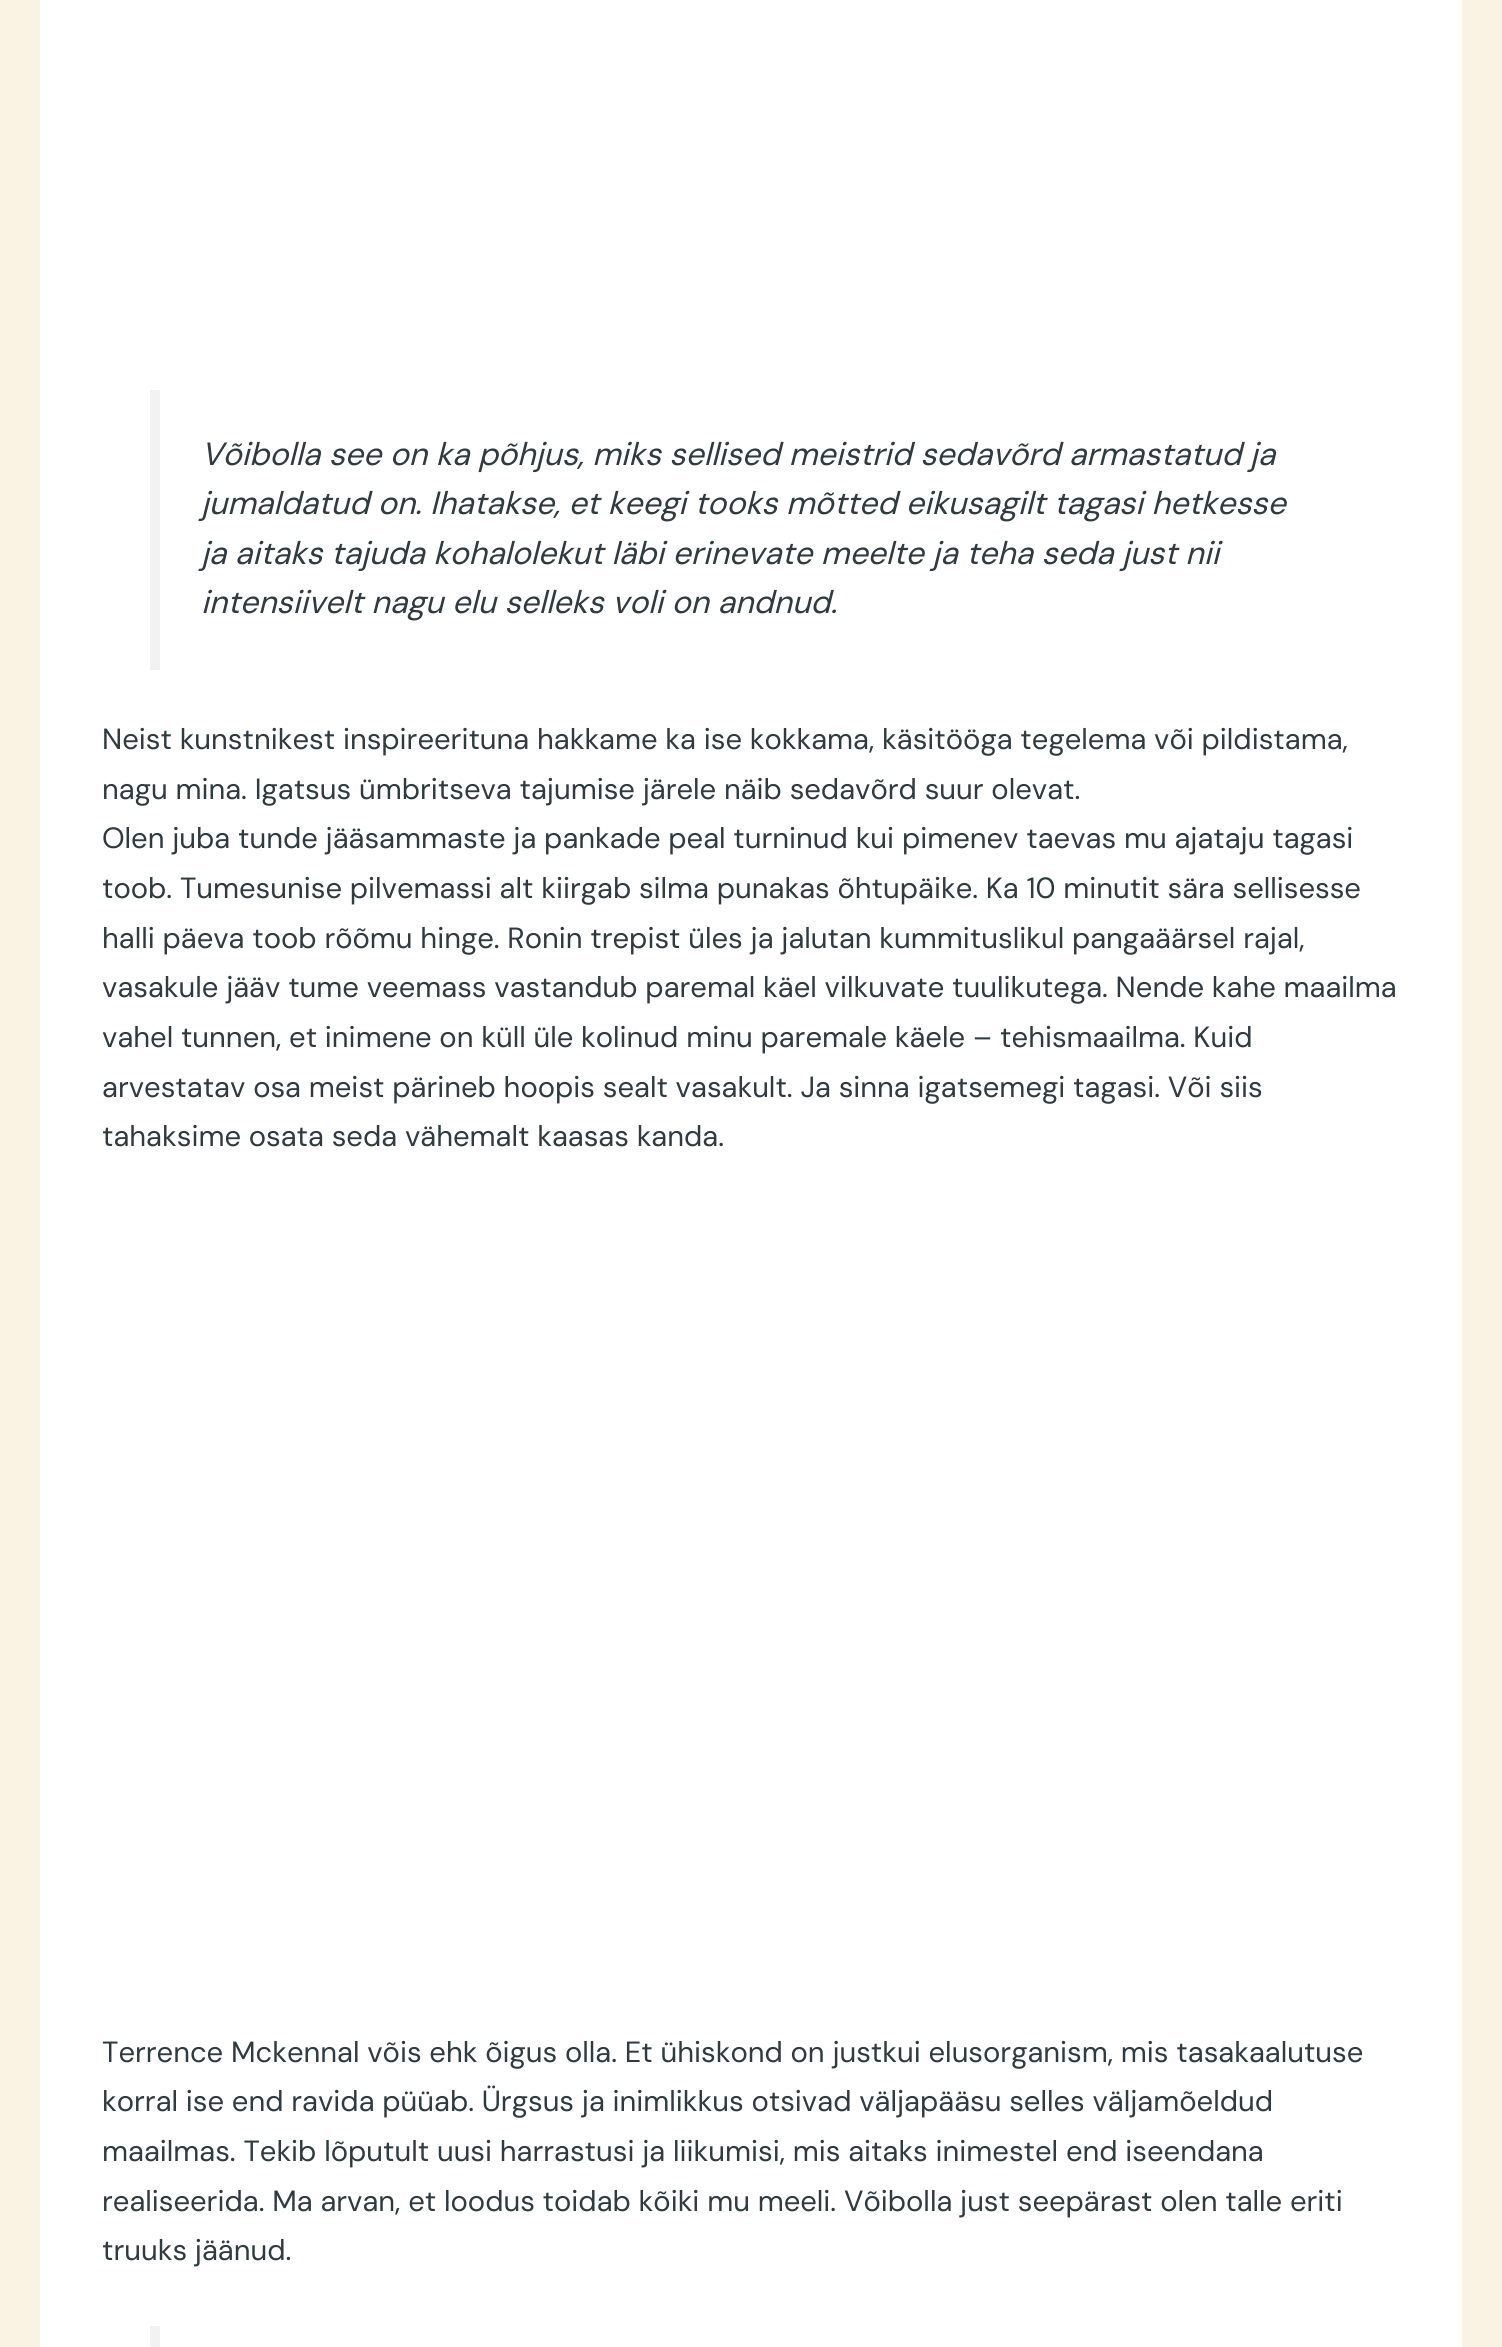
import math
import cairo


def draw(ctx):
	ctx.set_source_rgb(0.98, 0.953, 0.89)
	ctx.paint()
	ctx.set_source_rgb(1, 1, 1)
	ctx.rectangle(40, 0, 1422, 2347)
	ctx.fill()
	ctx.set_source_rgb(0.949, 0.949, 0.949)
	ctx.rectangle(150, 390, 10, 280)
	ctx.fill()
	ctx.select_font_face('DM Sans', cairo.FONT_SLANT_ITALIC)
	ctx.set_font_size(32.1)
	ctx.set_source_rgb(0.184, 0.231, 0.251)
	for x, y, s in [
		(201, 465, 'Võibolla see on ka põhjus, miks sellised meistrid sedavõrd armastatud ja'),
		(201, 514, 'jumaldatud on. Ihatakse, et keegi tooks mõtted eikusagilt tagasi hetkesse'),
		(201, 564, 'ja aitaks tajuda kohalolekut läbi erinevate meelte ja teha seda just nii'),
		(201, 613, 'intensiivelt nagu elu selleks voli on andnud.'),
	]:
		ctx.move_to(x, y)
		ctx.show_text(s)
	ctx.select_font_face('DM Sans')
	ctx.set_font_size(29.2)
	for x, y, s in [
		(102, 749, 'Neist kunstnikest inspireerituna hakkame ka ise kokkama, käsitööga tegelema või pildistama,'),
		(102, 799, 'nagu mina. Igatsus ümbritseva tajumise järele näib sedavõrd suur olevat.'),
		(102, 848, 'Olen juba tunde jääsammaste ja pankade peal turninud kui pimenev taevas mu ajataju tagasi'),
		(102, 898, 'toob. Tumesunise pilvemassi alt kiirgab silma punakas õhtupäike. Ka 10 minutit sära sellisesse'),
		(102, 948, 'halli päeva toob rõõmu hinge. Ronin trepist üles ja jalutan kummituslikul pangaäärsel rajal,'),
		(102, 997, 'vasakule jääv tume veemass vastandub paremal käel vilkuvate tuulikutega. Nende kahe maailma'),
		(102, 1047, 'vahel tunnen, et inimene on küll üle kolinud minu paremale käele – tehismaailma. Kuid'),
		(102, 1097, 'arvestatav osa meist pärineb hoopis sealt vasakult. Ja sinna igatsemegi tagasi. Või siis'),
		(102, 1146, 'tahaksime osata seda vähemalt kaasas kanda.'),
		(102, 2062, 'Terrence Mckennal võis ehk õigus olla. Et ühiskond on justkui elusorganism, mis tasakaalutuse'),
		(102, 2111, 'korral ise end ravida püüab. Ürgsus ja inimlikkus otsivad väljapääsu selles väljamõeldud'),
		(102, 2161, 'maailmas. Tekib lõputult uusi harrastusi ja liikumisi, mis aitaks inimestel end iseendana'),
		(102, 2211, 'realiseerida. Ma arvan, et loodus toidab kõiki mu meeli. Võibolla just seepärast olen talle eriti'),
		(102, 2260, 'truuks jäänud.'),
	]:
		ctx.move_to(x, y)
		ctx.show_text(s)
	ctx.set_source_rgb(0.949, 0.949, 0.949)
	ctx.rectangle(150, 2326, 10, 21)
	ctx.fill()


surface = cairo.ImageSurface(cairo.FORMAT_RGB24, 1502, 2347)
ctx = cairo.Context(surface)
options = cairo.FontOptions()
options.set_hint_metrics(cairo.HINT_METRICS_OFF)
options.set_hint_style(cairo.HINT_STYLE_NONE)
ctx.set_font_options(options)
ctx.set_miter_limit(4)
draw(ctx)
surface.write_to_png('image.png')
